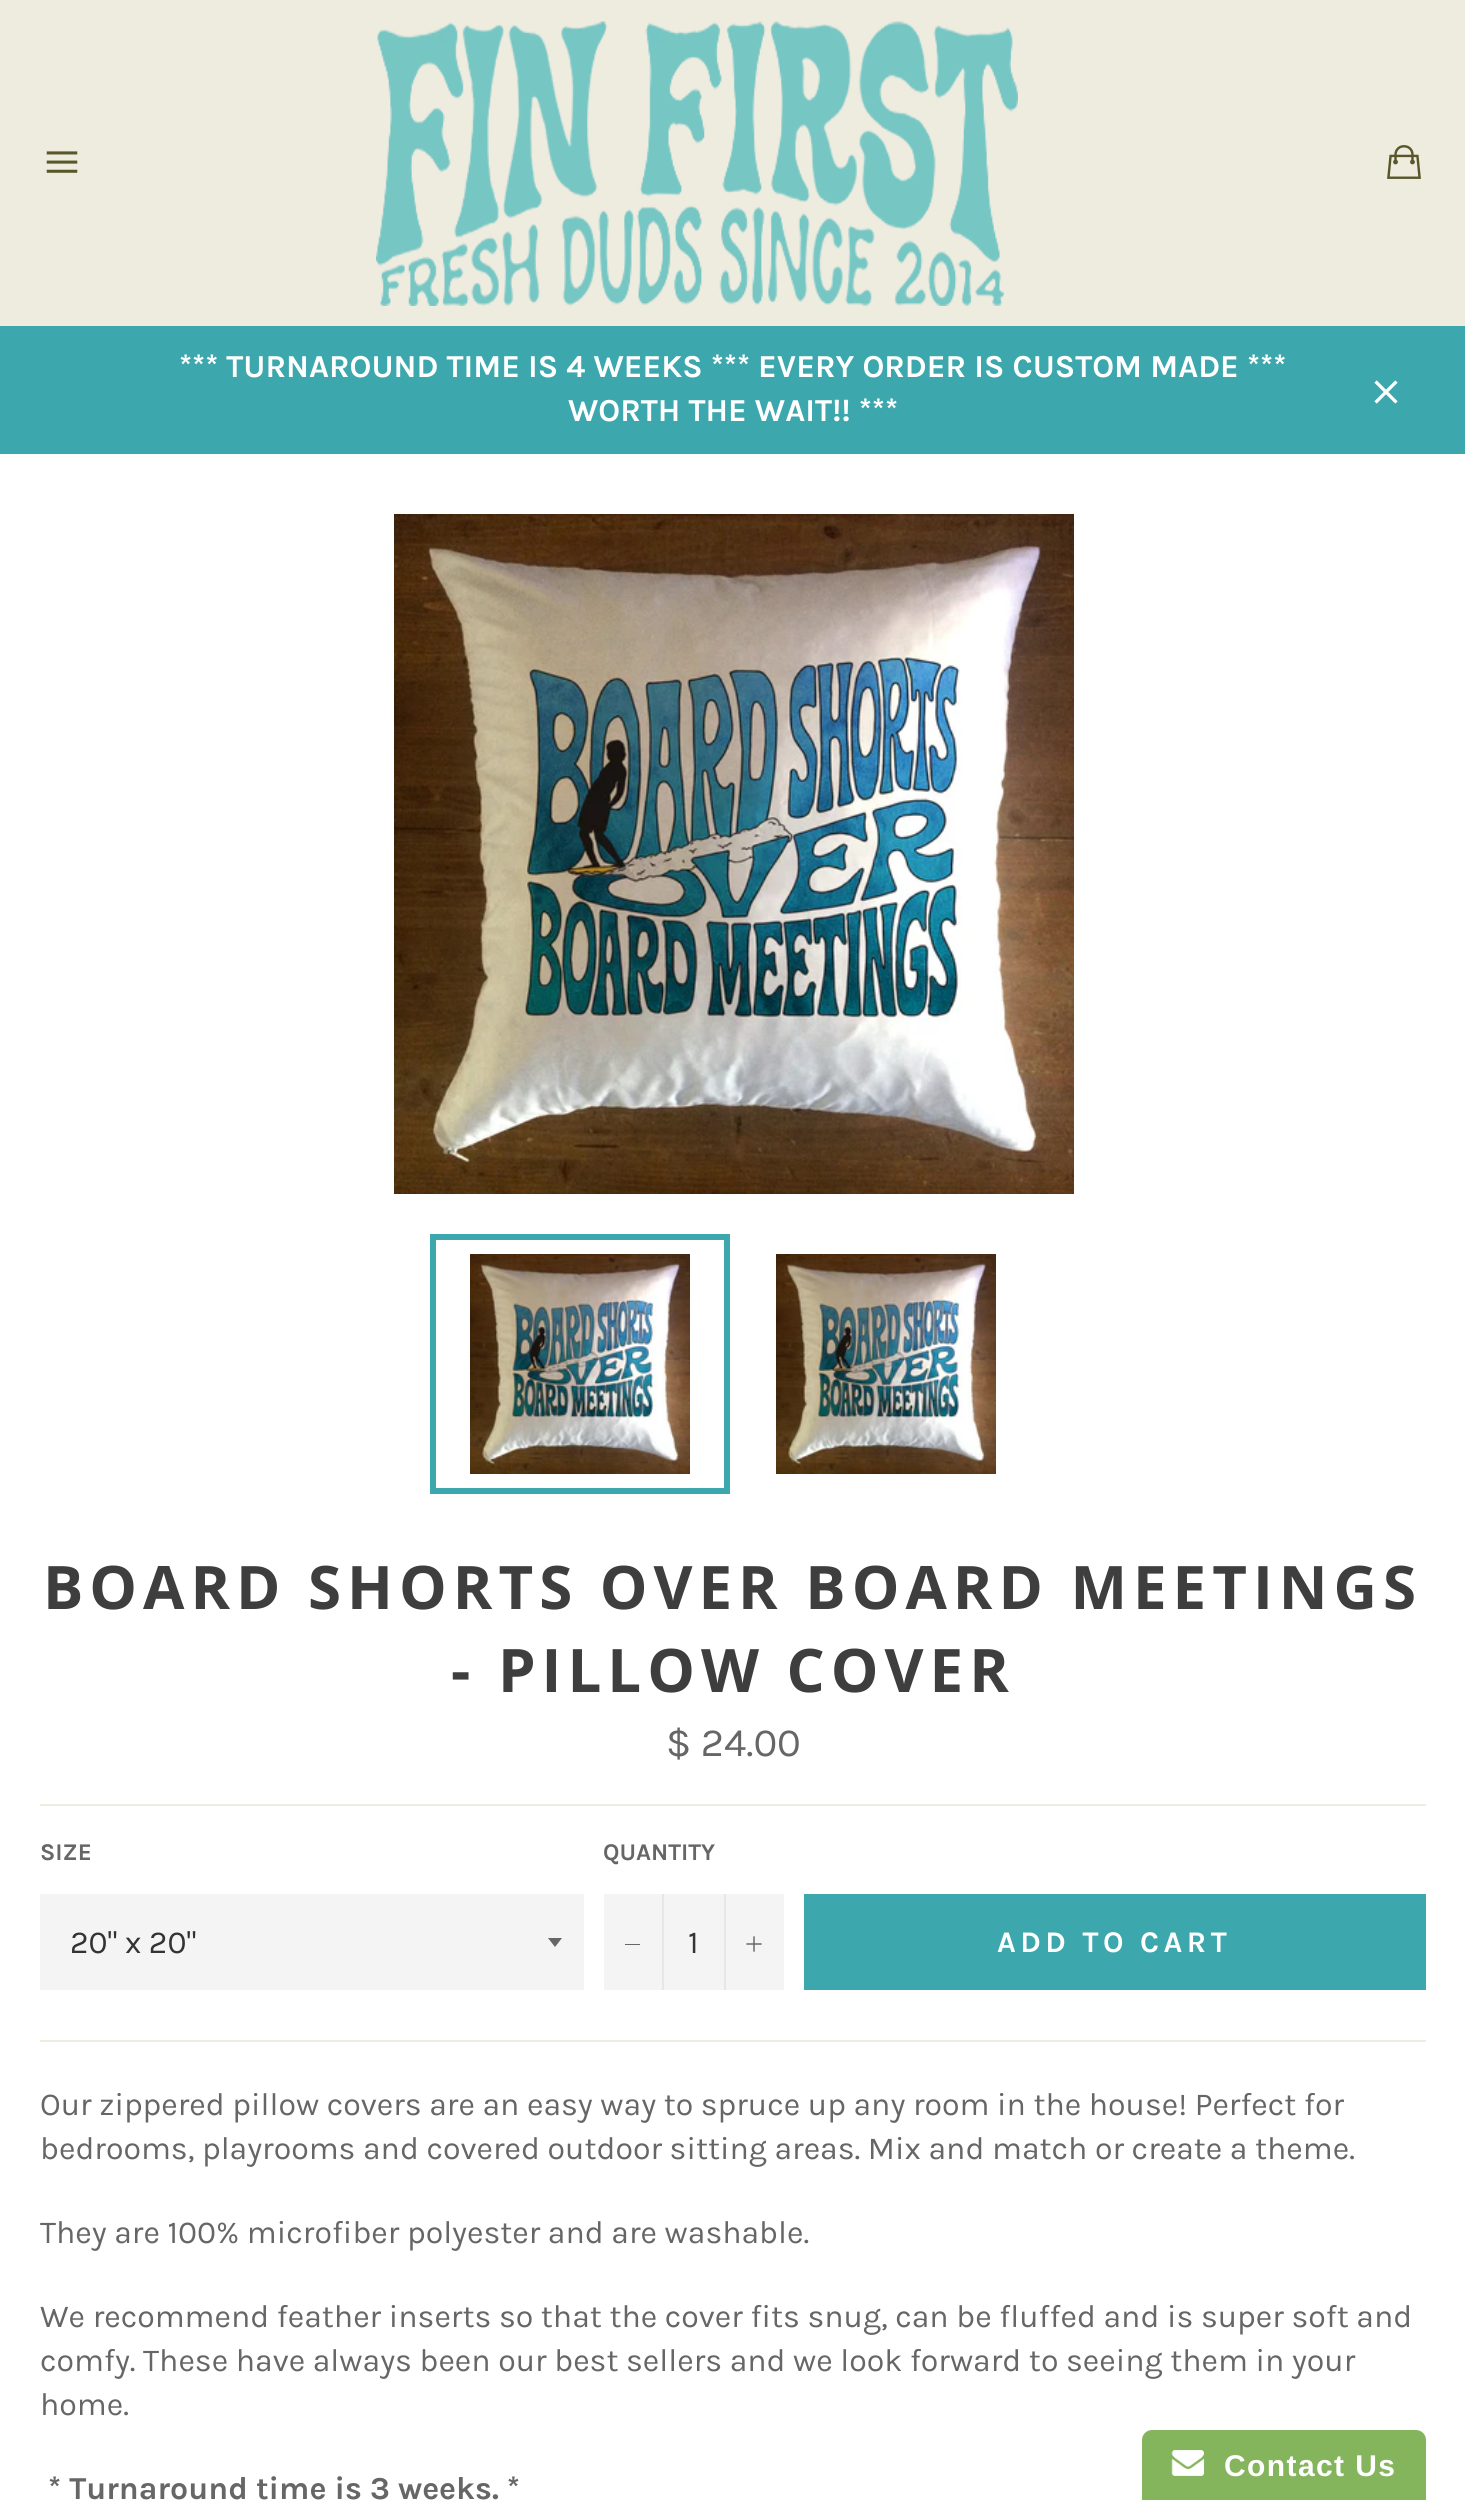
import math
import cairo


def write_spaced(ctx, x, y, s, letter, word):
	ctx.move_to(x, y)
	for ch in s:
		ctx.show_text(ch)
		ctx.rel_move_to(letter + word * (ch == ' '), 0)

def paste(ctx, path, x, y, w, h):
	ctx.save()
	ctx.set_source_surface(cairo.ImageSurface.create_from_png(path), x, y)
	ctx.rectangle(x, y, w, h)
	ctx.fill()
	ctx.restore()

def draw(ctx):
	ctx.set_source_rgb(1, 1, 1)
	ctx.paint()
	ctx.set_source_rgb(0.933, 0.918, 0.875)
	ctx.rectangle(0, 0, 1465, 326)
	ctx.fill()
	paste(ctx, 'media/1.png', 46, 151, 32, 22)
	paste(ctx, 'media/2.png', 376, 21, 642, 285)
	paste(ctx, 'media/3.png', 1387, 145, 34, 34)
	ctx.set_source_rgb(0.235, 0.655, 0.675)
	ctx.rectangle(0, 326, 1465, 128)
	ctx.fill()
	ctx.select_font_face('Karla', cairo.FONT_SLANT_NORMAL, cairo.FONT_WEIGHT_BOLD)
	ctx.set_font_size(32)
	ctx.set_source_rgb(1, 1, 1)
	ctx.move_to(179, 377)
	ctx.show_text('*** TURNAROUND TIME IS 4 WEEKS *** EVERY ORDER IS CUSTOM MADE ***')
	ctx.move_to(568, 421)
	ctx.show_text('WORTH THE WAIT!! ***')
	paste(ctx, 'media/4.png', 1374, 380, 24, 24)
	paste(ctx, 'media/5.png', 394, 514, 680, 680)
	paste(ctx, 'media/6.png', 470, 1254, 220, 220)
	ctx.rectangle(433, 1237, 294, 254)
	ctx.set_source_rgb(0.235, 0.655, 0.675)
	ctx.set_line_width(6)
	ctx.stroke()
	paste(ctx, 'media/7.png', 776, 1254, 220, 220)
	ctx.select_font_face('Open Sans', cairo.FONT_SLANT_NORMAL, cairo.FONT_WEIGHT_BOLD)
	ctx.set_font_size(60)
	ctx.set_source_rgb(0.247, 0.243, 0.243)
	write_spaced(ctx, 43, 1609, 'BOARD SHORTS OVER BOARD MEETINGS', 6, 0)
	write_spaced(ctx, 451, 1692, '- PILLOW COVER', 6, 0)
	ctx.select_font_face('Karla')
	ctx.set_font_size(40)
	ctx.set_source_rgb(0.4, 0.4, 0.4)
	ctx.move_to(666, 1756)
	ctx.show_text('$ 24.00')
	ctx.set_source_rgb(0.933, 0.918, 0.875)
	ctx.rectangle(40, 1804, 1386, 2)
	ctx.fill()
	ctx.select_font_face('Karla', cairo.FONT_SLANT_NORMAL, cairo.FONT_WEIGHT_BOLD)
	ctx.set_font_size(24)
	ctx.set_source_rgb(0.4, 0.4, 0.4)
	ctx.move_to(40, 1860)
	ctx.show_text('SIZE')
	ctx.set_source_rgb(0.957, 0.957, 0.957)
	ctx.rectangle(40, 1894, 544, 96)
	ctx.fill()
	ctx.set_source_rgb(0.4, 0.4, 0.4)
	ctx.new_path()
	ctx.move_to(548, 1938)
	ctx.line_to(555, 1947)
	ctx.line_to(562, 1938)
	ctx.close_path()
	ctx.fill()
	ctx.select_font_face('Karla')
	ctx.set_font_size(32)
	ctx.set_source_rgb(0.2, 0.2, 0.2)
	ctx.move_to(70, 1953)
	ctx.show_text('20" x 20"')
	ctx.select_font_face('Karla', cairo.FONT_SLANT_NORMAL, cairo.FONT_WEIGHT_BOLD)
	ctx.set_font_size(24)
	ctx.set_source_rgb(0.4, 0.4, 0.4)
	ctx.move_to(603, 1860)
	ctx.show_text('QUANTITY')
	ctx.set_source_rgb(0.957, 0.957, 0.957)
	ctx.rectangle(604, 1894, 180, 96)
	ctx.fill()
	ctx.set_source_rgb(0.906, 0.906, 0.906)
	ctx.rectangle(662, 1894, 2, 96)
	ctx.fill()
	ctx.set_source_rgb(0.4, 0.4, 0.4)
	ctx.rectangle(625, 1944, 15, 1)
	ctx.fill()
	ctx.select_font_face('Karla')
	ctx.set_font_size(32)
	ctx.set_source_rgb(0.2, 0.2, 0.2)
	ctx.move_to(688, 1953)
	ctx.show_text('1')
	ctx.set_source_rgb(0.906, 0.906, 0.906)
	ctx.rectangle(724, 1894, 2, 96)
	ctx.fill()
	paste(ctx, 'media/8.png', 746, 1936, 16, 16)
	ctx.set_source_rgb(0.235, 0.655, 0.675)
	ctx.rectangle(804, 1894, 622, 96)
	ctx.fill()
	ctx.select_font_face('Karla', cairo.FONT_SLANT_NORMAL, cairo.FONT_WEIGHT_BOLD)
	ctx.set_font_size(30)
	ctx.set_source_rgb(1, 1, 1)
	write_spaced(ctx, 997, 1952, 'ADD TO CART', 4.5, 0)
	ctx.set_source_rgb(0.933, 0.918, 0.875)
	ctx.rectangle(40, 2040, 1386, 2)
	ctx.fill()
	ctx.select_font_face('Karla')
	ctx.set_font_size(32)
	ctx.set_source_rgb(0.4, 0.4, 0.4)
	for x, y, s in [
		(40, 2115, 'Our zippered pillow covers are an easy way to spruce up any room in the house! Perfect for'),
		(40, 2159, 'bedrooms, playrooms and covered outdoor sitting areas. Mix and match or create a theme.'),
		(40, 2243, 'They are 100% microfiber polyester and are washable.'),
		(40, 2327, 'We recommend feather inserts so that the cover fits snug, can be fluffed and is super soft and'),
		(40, 2371, 'comfy. These have always been our best sellers and we look forward to seeing them in your'),
		(40, 2415, 'home.'),
	]:
		ctx.move_to(x, y)
		ctx.show_text(s)
	ctx.select_font_face('Karla', cairo.FONT_SLANT_NORMAL, cairo.FONT_WEIGHT_BOLD)
	ctx.move_to(48, 2499)
	ctx.show_text('* Turnaround time is 3 weeks. *')
	ctx.set_source_rgb(0.518, 0.706, 0.357)
	ctx.new_path()
	ctx.move_to(1152, 2430)
	ctx.line_to(1416, 2430)
	ctx.curve_to(1421.5, 2430, 1426, 2434.5, 1426, 2440)
	ctx.line_to(1426, 2500)
	ctx.line_to(1142, 2500)
	ctx.line_to(1142, 2440)
	ctx.curve_to(1142, 2434.5, 1146.5, 2430, 1152, 2430)
	ctx.close_path()
	ctx.fill()
	paste(ctx, 'media/9.png', 1171, 2450, 34, 26)
	ctx.select_font_face('Liberation Sans', cairo.FONT_SLANT_NORMAL, cairo.FONT_WEIGHT_BOLD)
	ctx.set_font_size(30)
	ctx.set_source_rgb(1, 1, 1)
	write_spaced(ctx, 1224, 2476, 'Contact Us', 1.4, 0)


surface = cairo.ImageSurface(cairo.FORMAT_RGB24, 1465, 2500)
ctx = cairo.Context(surface)
options = cairo.FontOptions()
options.set_hint_metrics(cairo.HINT_METRICS_OFF)
options.set_hint_style(cairo.HINT_STYLE_NONE)
ctx.set_font_options(options)
ctx.set_miter_limit(4)
draw(ctx)
surface.write_to_png('image.png')
